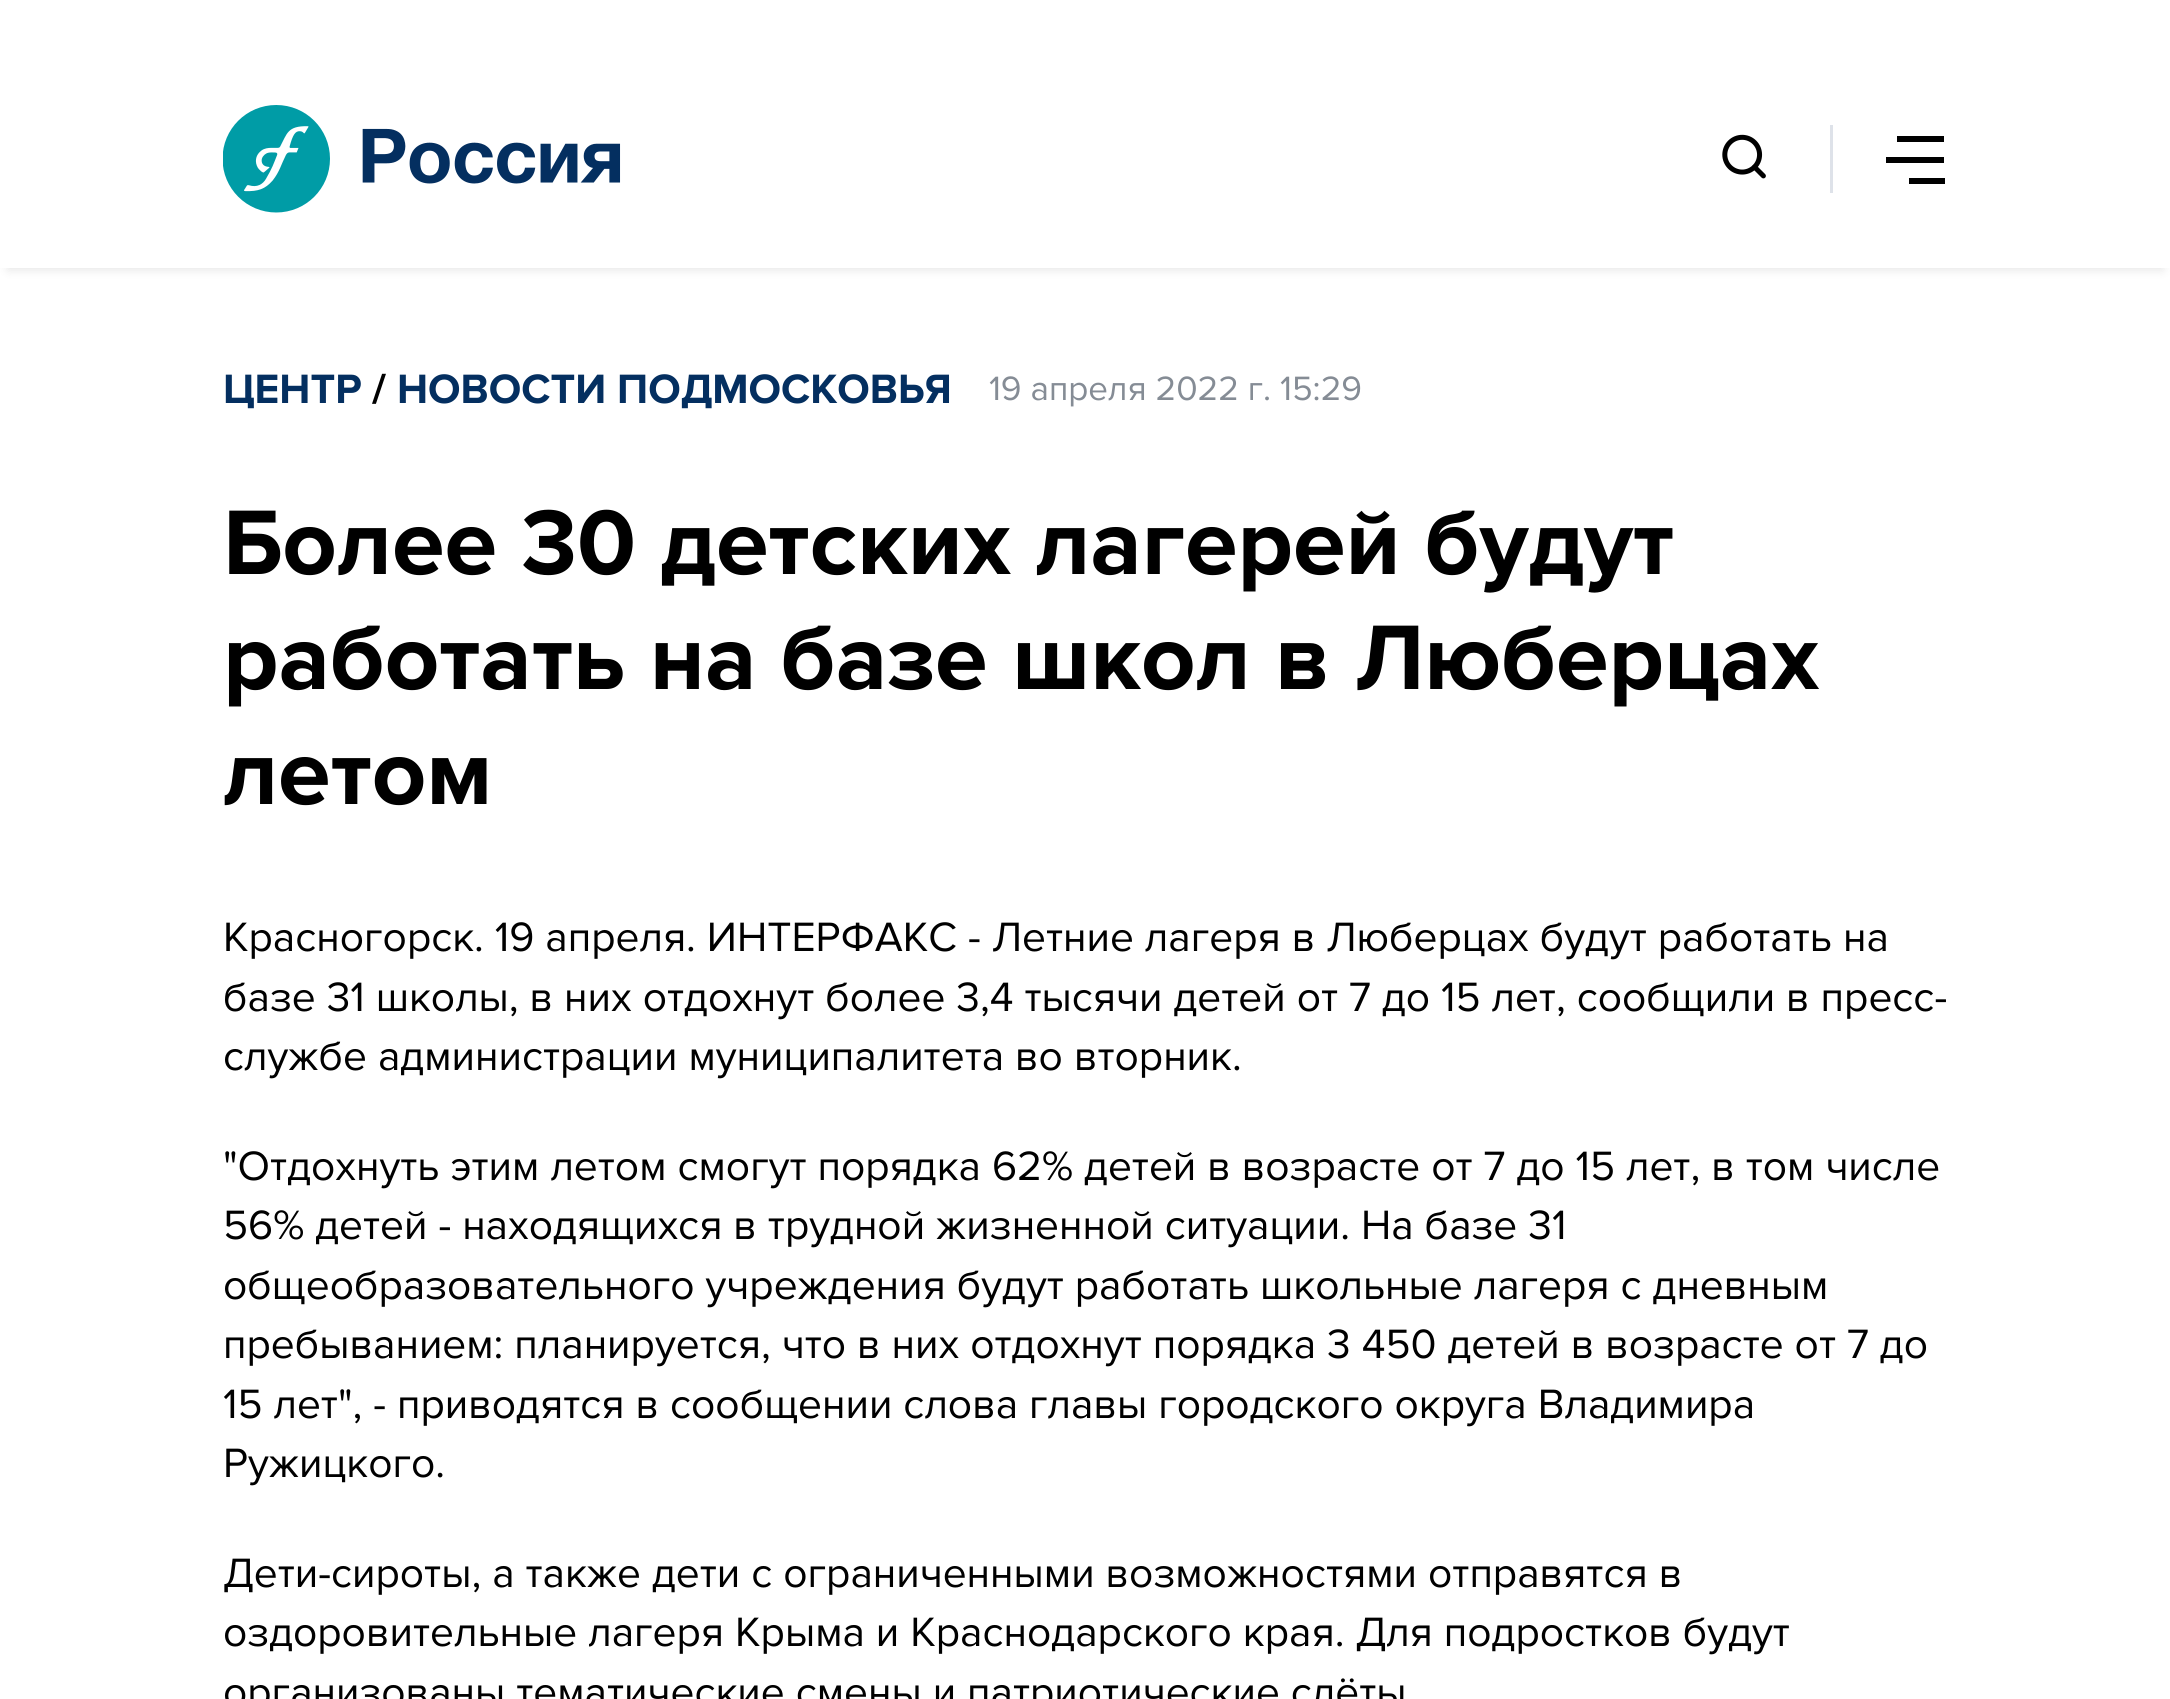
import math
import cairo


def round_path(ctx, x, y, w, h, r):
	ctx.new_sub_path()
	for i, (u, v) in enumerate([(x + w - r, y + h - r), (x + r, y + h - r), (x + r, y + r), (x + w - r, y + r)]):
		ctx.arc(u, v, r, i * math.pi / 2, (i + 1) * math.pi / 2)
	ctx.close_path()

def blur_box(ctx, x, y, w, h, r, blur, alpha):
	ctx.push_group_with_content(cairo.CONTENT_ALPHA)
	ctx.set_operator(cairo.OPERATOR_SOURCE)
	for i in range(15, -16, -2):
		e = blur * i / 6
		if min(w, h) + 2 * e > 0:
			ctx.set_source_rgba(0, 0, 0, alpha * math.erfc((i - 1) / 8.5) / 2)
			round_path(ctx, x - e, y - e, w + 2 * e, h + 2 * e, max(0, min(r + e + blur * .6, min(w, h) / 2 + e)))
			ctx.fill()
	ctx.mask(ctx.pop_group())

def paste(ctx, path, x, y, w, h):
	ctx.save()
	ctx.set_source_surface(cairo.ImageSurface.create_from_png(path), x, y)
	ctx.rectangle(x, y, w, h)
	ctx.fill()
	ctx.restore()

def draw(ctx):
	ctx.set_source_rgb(1, 1, 1)
	ctx.paint()
	ctx.save()
	ctx.set_fill_rule(cairo.FILL_RULE_EVEN_ODD)
	ctx.new_path()
	ctx.move_to(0, 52)
	ctx.line_to(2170, 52)
	ctx.line_to(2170, 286)
	ctx.line_to(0, 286)
	ctx.close_path()
	ctx.move_to(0, 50)
	ctx.line_to(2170, 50)
	ctx.line_to(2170, 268)
	ctx.line_to(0, 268)
	ctx.close_path()
	ctx.clip()
	ctx.set_source_rgb(0, 0, 0)
	blur_box(ctx, 8, 68, 2155, 202, 0, 5, 0.1)
	ctx.restore()
	paste(ctx, 'media/1.png', 223, 105, 398, 108)
	ctx.set_source_rgb(0.871, 0.886, 0.914)
	ctx.rectangle(1830, 125, 3, 68)
	ctx.fill()
	paste(ctx, 'media/2.png', 1722, 134, 44, 45)
	ctx.set_source_rgb(0, 0, 0)
	ctx.rectangle(1897, 136, 47, 6)
	ctx.rectangle(1886, 157, 58, 6)
	ctx.rectangle(1909, 178, 36, 6)
	ctx.fill()
	ctx.select_font_face('Proxima Nova', cairo.FONT_SLANT_NORMAL, cairo.FONT_WEIGHT_BOLD)
	ctx.set_font_size(42.5)
	ctx.set_source_rgb(0.016, 0.184, 0.376)
	ctx.move_to(223, 403)
	ctx.show_text('ЦЕНТР')
	ctx.set_source_rgb(0, 0, 0)
	ctx.move_to(372, 403)
	ctx.show_text('/')
	ctx.set_source_rgb(0.016, 0.184, 0.376)
	ctx.move_to(397, 403)
	ctx.show_text('НОВОСТИ ПОДМОСКОВЬЯ')
	ctx.select_font_face('Proxima Nova')
	ctx.set_font_size(35)
	ctx.set_source_rgb(0.522, 0.549, 0.584)
	ctx.move_to(989, 400)
	ctx.show_text('19 апреля 2022 г. 15:29')
	ctx.select_font_face('Proxima Nova', cairo.FONT_SLANT_NORMAL, cairo.FONT_WEIGHT_BOLD)
	ctx.set_font_size(95)
	ctx.set_source_rgb(0, 0, 0)
	for x, y, s in [
		(223, 574, 'Более 30 детских лагерей будут'),
		(223, 689, 'работать на базе школ в Люберцах'),
		(223, 804, 'летом'),
	]:
		ctx.move_to(x, y)
		ctx.show_text(s)
	ctx.select_font_face('Proxima Nova')
	ctx.set_font_size(42.5)
	for x, y, s in [
		(223, 951, 'Красногорск. 19 апреля. ИНТЕРФАКС - Летние лагеря в Люберцах будут работать на'),
		(223, 1011, 'базе 31 школы, в них отдохнут более 3,4 тысячи детей от 7 до 15 лет, сообщили в пресс-'),
		(223, 1070, 'службе администрации муниципалитета во вторник.'),
		(223, 1180, '"Отдохнуть этим летом смогут порядка 62% детей в возрасте от 7 до 15 лет, в том числе'),
		(223, 1239, '56% детей - находящихся в трудной жизненной ситуации. На базе 31'),
		(223, 1299, 'общеобразовательного учреждения будут работать школьные лагеря с дневным'),
		(223, 1358, 'пребыванием: планируется, что в них отдохнут порядка 3 450 детей в возрасте от 7 до'),
		(223, 1418, '15 лет", - приводятся в сообщении слова главы городского округа Владимира'),
		(223, 1477, 'Ружицкого.'),
		(223, 1587, 'Дети-сироты, а также дети с ограниченными возможностями отправятся в'),
		(223, 1646, 'оздоровительные лагеря Крыма и Краснодарского края. Для подростков будут'),
		(223, 1706, 'организованы тематические смены и патриотические слёты'),
	]:
		ctx.move_to(x, y)
		ctx.show_text(s)


surface = cairo.ImageSurface(cairo.FORMAT_RGB24, 2170, 1699)
ctx = cairo.Context(surface)
options = cairo.FontOptions()
options.set_hint_metrics(cairo.HINT_METRICS_OFF)
options.set_hint_style(cairo.HINT_STYLE_NONE)
ctx.set_font_options(options)
ctx.set_miter_limit(4)
draw(ctx)
surface.write_to_png('image.png')
